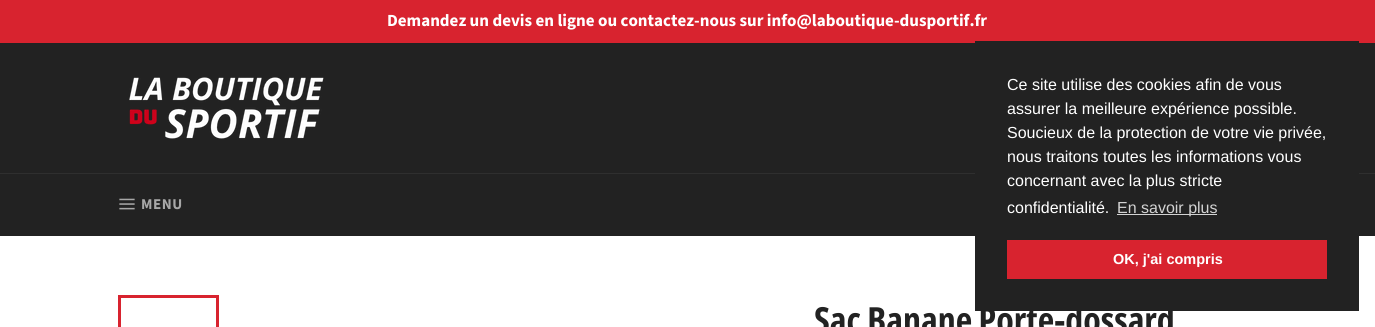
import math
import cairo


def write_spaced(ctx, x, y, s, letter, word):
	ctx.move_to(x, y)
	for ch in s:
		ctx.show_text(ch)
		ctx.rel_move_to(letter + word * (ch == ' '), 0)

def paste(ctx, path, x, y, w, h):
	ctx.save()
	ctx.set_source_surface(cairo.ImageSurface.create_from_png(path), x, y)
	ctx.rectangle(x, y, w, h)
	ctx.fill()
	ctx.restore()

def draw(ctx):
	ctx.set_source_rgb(0.133, 0.133, 0.133)
	ctx.paint()
	ctx.set_source_rgb(0.847, 0.137, 0.184)
	ctx.rectangle(0, 0, 1375, 43)
	ctx.fill()
	ctx.select_font_face('Source Sans Pro', cairo.FONT_SLANT_NORMAL, cairo.FONT_WEIGHT_BOLD)
	ctx.set_font_size(17)
	ctx.set_source_rgb(1, 1, 1)
	ctx.move_to(387, 26)
	ctx.show_text('Demandez un devis en ligne ou contactez-nous sur info@laboutique-dusportif.fr')
	paste(ctx, 'media/1.png', 129, 77, 195, 62)
	ctx.set_source_rgb(0.184, 0.184, 0.184)
	ctx.rectangle(0, 173, 1375, 1)
	ctx.fill()
	paste(ctx, 'media/2.png', 119, 198, 16, 12)
	ctx.set_font_size(15)
	ctx.set_source_rgb(0.655, 0.655, 0.655)
	write_spaced(ctx, 141, 209, 'MENU', 0.5, 0)
	ctx.set_source_rgb(1, 1, 1)
	ctx.rectangle(0, 236, 1375, 91)
	ctx.fill()
	ctx.set_source_rgb(0.133, 0.133, 0.133)
	ctx.rectangle(975, 41, 384, 270)
	ctx.fill()
	ctx.select_font_face('Liberation Sans')
	ctx.set_font_size(16)
	ctx.set_source_rgb(1, 1, 1)
	for x, y, s in [
		(1007, 90, 'Ce site utilise des cookies afin de vous'),
		(1007, 114, 'assurer la meilleure expérience possible.'),
		(1007, 138, 'Soucieux de la protection de votre vie privée,'),
		(1007, 162, 'nous traitons toutes les informations vous'),
		(1007, 186, 'concernant avec la plus stricte'),
		(1007, 213, 'confidentialité.'),
	]:
		ctx.move_to(x, y)
		ctx.show_text(s)
	ctx.set_source_rgb(0.827, 0.827, 0.827)
	ctx.rectangle(1117, 214, 100, 1)
	ctx.fill()
	ctx.move_to(1117, 213)
	ctx.show_text('En savoir plus')
	ctx.set_source_rgb(0.847, 0.137, 0.184)
	ctx.rectangle(1007, 240, 320, 39)
	ctx.fill()
	ctx.select_font_face('Liberation Sans', cairo.FONT_SLANT_NORMAL, cairo.FONT_WEIGHT_BOLD)
	ctx.set_font_size(14.5)
	ctx.set_source_rgb(1, 1, 1)
	ctx.move_to(1113, 264)
	ctx.show_text('OK, j\'ai compris')
	ctx.rectangle(119.5, 296.5, 98, 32)
	ctx.set_source_rgb(0.847, 0.137, 0.184)
	ctx.set_line_width(3)
	ctx.stroke()
	ctx.select_font_face('Open Sans Condensed', cairo.FONT_SLANT_NORMAL, cairo.FONT_WEIGHT_BOLD)
	ctx.set_font_size(36)
	ctx.set_source_rgb(0.133, 0.133, 0.133)
	ctx.move_to(814, 333)
	ctx.show_text('Sac Banane Porte-dossard')


surface = cairo.ImageSurface(cairo.FORMAT_RGB24, 1375, 327)
ctx = cairo.Context(surface)
options = cairo.FontOptions()
options.set_hint_metrics(cairo.HINT_METRICS_OFF)
options.set_hint_style(cairo.HINT_STYLE_NONE)
ctx.set_font_options(options)
ctx.set_miter_limit(4)
draw(ctx)
surface.write_to_png('image.png')
